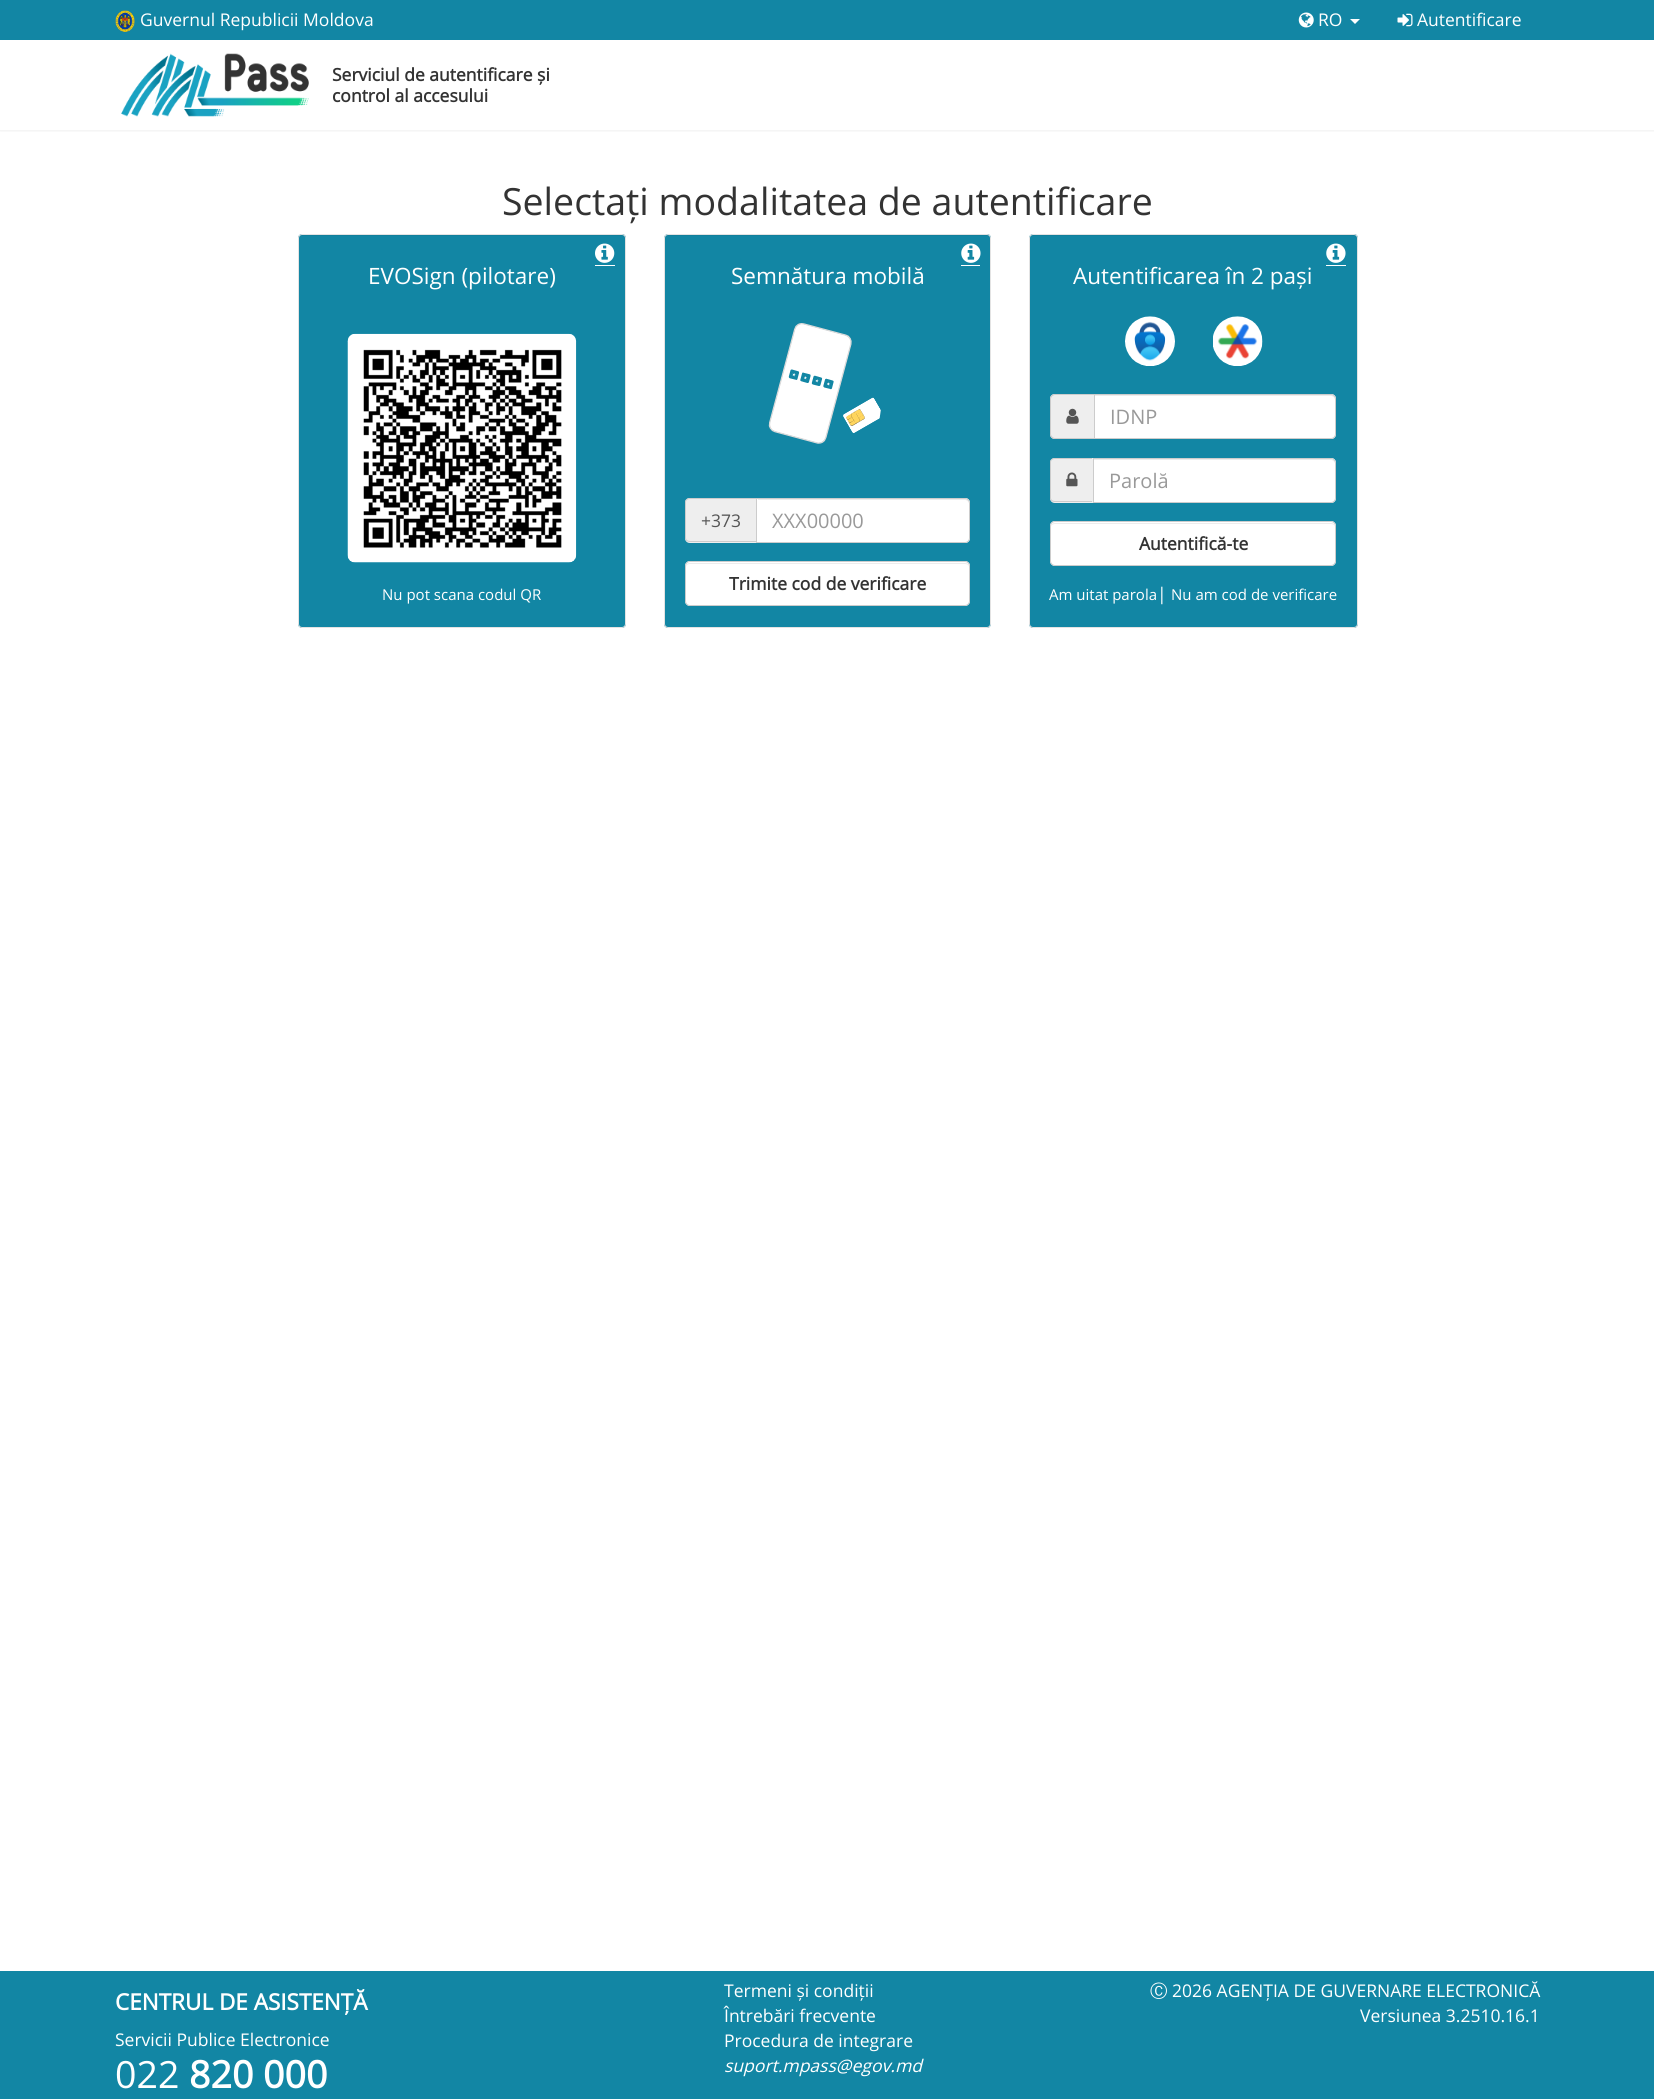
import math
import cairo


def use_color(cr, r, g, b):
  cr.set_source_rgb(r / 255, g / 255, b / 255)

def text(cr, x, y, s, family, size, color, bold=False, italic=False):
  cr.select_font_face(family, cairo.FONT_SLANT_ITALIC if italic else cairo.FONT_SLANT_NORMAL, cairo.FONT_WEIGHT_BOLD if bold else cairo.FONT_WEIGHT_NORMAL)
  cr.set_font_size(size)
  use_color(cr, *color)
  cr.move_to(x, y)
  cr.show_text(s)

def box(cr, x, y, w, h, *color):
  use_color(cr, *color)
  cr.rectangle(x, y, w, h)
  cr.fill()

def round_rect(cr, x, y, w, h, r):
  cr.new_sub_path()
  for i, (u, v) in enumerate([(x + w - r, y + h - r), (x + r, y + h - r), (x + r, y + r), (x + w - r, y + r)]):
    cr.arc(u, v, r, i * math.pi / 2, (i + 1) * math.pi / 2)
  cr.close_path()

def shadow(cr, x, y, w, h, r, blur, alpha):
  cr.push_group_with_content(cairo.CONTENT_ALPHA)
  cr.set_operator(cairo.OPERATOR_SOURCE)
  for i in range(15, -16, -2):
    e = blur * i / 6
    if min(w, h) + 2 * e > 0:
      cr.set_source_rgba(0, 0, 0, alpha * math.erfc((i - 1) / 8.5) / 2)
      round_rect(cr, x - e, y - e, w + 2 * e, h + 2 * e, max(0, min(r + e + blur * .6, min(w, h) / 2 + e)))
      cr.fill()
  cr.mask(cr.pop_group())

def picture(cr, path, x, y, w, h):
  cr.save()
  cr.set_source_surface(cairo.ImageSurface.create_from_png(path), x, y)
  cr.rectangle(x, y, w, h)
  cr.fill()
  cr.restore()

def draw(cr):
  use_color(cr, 255, 255, 255)
  cr.paint()
  cr.save()
  cr.rectangle(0, 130, 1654, 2)
  cr.clip()
  use_color(cr, 0, 0, 0)
  shadow(cr, 0, 1, 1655, 130, 0, 1.5, 0.07)
  cr.restore()
  box(cr, 0, 0, 1654, 40, 18, 134, 164)
  picture(cr, "img_01.png", 115, 10, 20, 23)
  picture(cr, "img_02.png", 1298, 12, 16, 16)
  use_color(cr, 255, 255, 255)
  cr.new_path()
  cr.move_to(1350, 19)
  cr.line_to(1360, 19)
  cr.line_to(1355, 24)
  cr.close_path()
  cr.fill()
  picture(cr, "img_03.png", 1397, 13, 16, 14)
  picture(cr, "img_04.png", 121, 53, 188, 64)
  use_color(cr, 18, 134, 164)
  round_rect(cr, 298, 234, 328, 394, 4)
  cr.fill()
  use_color(cr, 17, 127, 156)
  cr.new_path()
  cr.move_to(301, 236)
  cr.line_to(622, 236)
  cr.curve_to(624, 236, 625, 237, 625, 239)
  cr.curve_to(625, 237, 625, 235, 622, 235)
  cr.line_to(302, 235)
  cr.curve_to(299, 235, 299, 237, 299, 239)
  cr.curve_to(299, 237, 300, 236, 301, 236)
  cr.close_path()
  cr.fill()
  round_rect(cr, 298.5, 234.5, 327, 393, 3.5)
  use_color(cr, 227, 227, 227)
  cr.set_line_width(1)
  cr.stroke()
  box(cr, 595, 265, 20, 1, 255, 255, 255)
  picture(cr, "img_05.png", 595, 243, 20, 20)
  picture(cr, "img_06.png", 347, 333, 230, 230)
  use_color(cr, 18, 134, 164)
  round_rect(cr, 664, 234, 327, 394, 4)
  cr.fill()
  use_color(cr, 17, 127, 156)
  cr.new_path()
  cr.move_to(668, 236)
  cr.line_to(988, 236)
  cr.curve_to(989, 236, 990, 237, 990, 239)
  cr.line_to(990, 238)
  cr.curve_to(990, 236, 989, 235, 988, 235)
  cr.line_to(668, 235)
  cr.curve_to(666, 235, 665, 236, 665, 238)
  cr.line_to(665, 239)
  cr.curve_to(665, 237, 666, 236, 668, 236)
  cr.close_path()
  cr.fill()
  round_rect(cr, 664.5, 234.5, 326, 393, 3.5)
  use_color(cr, 227, 227, 227)
  cr.stroke()
  box(cr, 961, 265, 19, 1, 255, 255, 255)
  picture(cr, "img_07.png", 961, 243, 20, 20)
  picture(cr, "img_08.png", 768, 323, 113, 121)
  use_color(cr, 238, 238, 238)
  cr.new_path()
  cr.move_to(690, 498)
  cr.line_to(756, 498)
  cr.line_to(756, 543)
  cr.line_to(690, 543)
  cr.curve_to(687, 543, 685, 541, 685, 538)
  cr.line_to(685, 503)
  cr.curve_to(685, 500, 687, 498, 690, 498)
  cr.close_path()
  cr.fill()
  use_color(cr, 204, 204, 204)
  cr.set_fill_rule(cairo.FILL_RULE_EVEN_ODD)
  cr.new_path()
  cr.move_to(690, 498)
  cr.line_to(756, 498)
  cr.line_to(756, 542)
  cr.line_to(690, 542)
  cr.curve_to(687, 542, 685, 540, 685, 538)
  cr.line_to(685, 502)
  cr.curve_to(685, 500, 687, 498, 690, 498)
  cr.close_path()
  cr.move_to(690, 499)
  cr.line_to(756, 499)
  cr.line_to(756, 541)
  cr.line_to(690, 541)
  cr.curve_to(688, 541, 686, 540, 686, 538)
  cr.line_to(686, 502)
  cr.curve_to(686, 500, 688, 499, 690, 499)
  cr.close_path()
  cr.fill()
  use_color(cr, 255, 255, 255)
  cr.new_path()
  cr.move_to(756, 498)
  cr.line_to(965, 498)
  cr.curve_to(968, 498, 970, 500, 970, 503)
  cr.line_to(970, 538)
  cr.curve_to(970, 541, 968, 543, 965, 543)
  cr.line_to(756, 543)
  cr.close_path()
  cr.fill()
  use_color(cr, 236, 236, 236)
  cr.set_fill_rule(cairo.FILL_RULE_WINDING)
  cr.new_path()
  cr.move_to(758, 500)
  cr.line_to(965, 500)
  cr.curve_to(967, 500, 969, 502, 969, 504)
  cr.curve_to(969, 502, 969, 500, 967, 499)
  cr.line_to(758, 499)
  cr.close_path()
  cr.fill()
  cr.new_path()
  cr.move_to(756.5, 498.5)
  cr.line_to(965, 498.5)
  cr.curve_to(967.5, 498.5, 969.5, 500.5, 969.5, 503)
  cr.line_to(969.5, 538)
  cr.curve_to(969.5, 540.5, 967.5, 542.5, 965, 542.5)
  cr.line_to(756.5, 542.5)
  cr.close_path()
  use_color(cr, 204, 204, 204)
  cr.stroke()
  use_color(cr, 255, 255, 255)
  round_rect(cr, 685, 561, 285, 45, 5)
  cr.fill()
  use_color(cr, 236, 236, 236)
  cr.new_path()
  cr.move_to(690, 564)
  cr.line_to(965, 564)
  cr.curve_to(967, 564, 969, 565, 969, 568)
  cr.curve_to(969, 565, 968, 563, 965, 563)
  cr.line_to(690, 563)
  cr.curve_to(687, 563, 686, 565, 686, 568)
  cr.curve_to(686, 565, 688, 564, 690, 564)
  cr.close_path()
  cr.fill()
  round_rect(cr, 685.5, 561.5, 284, 44, 4.5)
  use_color(cr, 204, 204, 204)
  cr.stroke()
  use_color(cr, 18, 134, 164)
  round_rect(cr, 1029, 234, 329, 394, 4)
  cr.fill()
  use_color(cr, 17, 127, 156)
  cr.new_path()
  cr.move_to(1032, 236)
  cr.line_to(1354, 236)
  cr.curve_to(1355, 236, 1356, 237, 1356, 239)
  cr.curve_to(1356, 237, 1356, 235, 1354, 235)
  cr.line_to(1032, 235)
  cr.curve_to(1030, 235, 1030, 237, 1030, 239)
  cr.curve_to(1030, 237, 1031, 236, 1032, 236)
  cr.close_path()
  cr.fill()
  round_rect(cr, 1029.5, 234.5, 328, 393, 3.5)
  use_color(cr, 227, 227, 227)
  cr.stroke()
  box(cr, 1326, 265, 20, 1, 255, 255, 255)
  picture(cr, "img_07.png", 1326, 243, 20, 20)
  picture(cr, "img_09.png", 1125, 316, 50, 50)
  picture(cr, "img_10.png", 1213, 316, 50, 50)
  use_color(cr, 238, 238, 238)
  cr.new_path()
  cr.move_to(1055, 394)
  cr.line_to(1094, 394)
  cr.line_to(1094, 439)
  cr.line_to(1055, 439)
  cr.curve_to(1052, 439, 1050, 437, 1050, 434)
  cr.line_to(1050, 399)
  cr.curve_to(1050, 396, 1052, 394, 1055, 394)
  cr.close_path()
  cr.fill()
  use_color(cr, 204, 204, 204)
  cr.set_fill_rule(cairo.FILL_RULE_EVEN_ODD)
  cr.new_path()
  cr.move_to(1055, 394)
  cr.line_to(1094, 394)
  cr.line_to(1094, 439)
  cr.line_to(1055, 439)
  cr.curve_to(1052, 439, 1050, 437, 1050, 434)
  cr.line_to(1050, 399)
  cr.curve_to(1050, 396, 1052, 394, 1055, 394)
  cr.close_path()
  cr.move_to(1055, 395)
  cr.line_to(1094, 395)
  cr.line_to(1094, 438)
  cr.line_to(1055, 438)
  cr.curve_to(1053, 438, 1051, 436, 1051, 434)
  cr.line_to(1051, 399)
  cr.curve_to(1051, 397, 1053, 395, 1055, 395)
  cr.close_path()
  cr.fill()
  picture(cr, "img_11.png", 1066, 408, 13, 16)
  use_color(cr, 255, 255, 255)
  cr.new_path()
  cr.move_to(1094, 394)
  cr.line_to(1331, 394)
  cr.curve_to(1334, 394, 1336, 396, 1336, 399)
  cr.line_to(1336, 434)
  cr.curve_to(1336, 437, 1334, 439, 1331, 439)
  cr.line_to(1094, 439)
  cr.close_path()
  cr.fill()
  use_color(cr, 236, 236, 236)
  cr.set_fill_rule(cairo.FILL_RULE_WINDING)
  cr.new_path()
  cr.move_to(1095, 396)
  cr.line_to(1331, 396)
  cr.curve_to(1333, 396, 1335, 398, 1335, 400)
  cr.curve_to(1335, 398, 1335, 396, 1333, 395)
  cr.line_to(1095, 395)
  cr.close_path()
  cr.fill()
  cr.new_path()
  cr.move_to(1094.5, 394.5)
  cr.line_to(1331, 394.5)
  cr.curve_to(1333.5, 394.5, 1335.5, 396.5, 1335.5, 399)
  cr.line_to(1335.5, 434)
  cr.curve_to(1335.5, 436.5, 1333.5, 438.5, 1331, 438.5)
  cr.line_to(1094.5, 438.5)
  cr.close_path()
  use_color(cr, 204, 204, 204)
  cr.stroke()
  use_color(cr, 238, 238, 238)
  cr.new_path()
  cr.move_to(1055, 458)
  cr.line_to(1093, 458)
  cr.line_to(1093, 503)
  cr.line_to(1055, 503)
  cr.curve_to(1052, 503, 1050, 501, 1050, 498)
  cr.line_to(1050, 463)
  cr.curve_to(1050, 460, 1052, 458, 1055, 458)
  cr.close_path()
  cr.fill()
  use_color(cr, 204, 204, 204)
  cr.set_fill_rule(cairo.FILL_RULE_EVEN_ODD)
  cr.new_path()
  cr.move_to(1055, 458)
  cr.line_to(1092, 458)
  cr.line_to(1092, 502)
  cr.line_to(1055, 502)
  cr.curve_to(1052, 502, 1050, 500, 1050, 498)
  cr.line_to(1050, 462)
  cr.curve_to(1050, 460, 1052, 458, 1055, 458)
  cr.close_path()
  cr.move_to(1055, 459)
  cr.line_to(1092, 459)
  cr.line_to(1092, 501)
  cr.line_to(1055, 501)
  cr.curve_to(1053, 501, 1051, 500, 1051, 498)
  cr.line_to(1051, 462)
  cr.curve_to(1051, 460, 1053, 459, 1055, 459)
  cr.close_path()
  cr.fill()
  picture(cr, "img_12.png", 1066, 472, 12, 15)
  use_color(cr, 255, 255, 255)
  cr.new_path()
  cr.move_to(1093, 458)
  cr.line_to(1331, 458)
  cr.curve_to(1334, 458, 1336, 460, 1336, 463)
  cr.line_to(1336, 498)
  cr.curve_to(1336, 501, 1334, 503, 1331, 503)
  cr.line_to(1093, 503)
  cr.close_path()
  cr.fill()
  use_color(cr, 236, 236, 236)
  cr.set_fill_rule(cairo.FILL_RULE_WINDING)
  cr.new_path()
  cr.move_to(1094, 460)
  cr.line_to(1331, 460)
  cr.curve_to(1333, 460, 1335, 462, 1335, 464)
  cr.curve_to(1335, 461, 1334, 459, 1331, 459)
  cr.line_to(1094, 459)
  cr.close_path()
  cr.fill()
  cr.new_path()
  cr.move_to(1093.5, 458.5)
  cr.line_to(1331, 458.5)
  cr.curve_to(1333.5, 458.5, 1335.5, 460.5, 1335.5, 463)
  cr.line_to(1335.5, 498)
  cr.curve_to(1335.5, 500.5, 1333.5, 502.5, 1331, 502.5)
  cr.line_to(1093.5, 502.5)
  cr.close_path()
  use_color(cr, 204, 204, 204)
  cr.stroke()
  use_color(cr, 255, 255, 255)
  round_rect(cr, 1050, 521, 286, 45, 5)
  cr.fill()
  use_color(cr, 236, 236, 236)
  cr.new_path()
  cr.move_to(1055, 524)
  cr.line_to(1331, 524)
  cr.curve_to(1333, 524, 1335, 525, 1335, 528)
  cr.curve_to(1335, 525, 1334, 523, 1331, 523)
  cr.line_to(1055, 523)
  cr.curve_to(1052, 523, 1051, 525, 1051, 528)
  cr.curve_to(1051, 525, 1053, 524, 1055, 524)
  cr.close_path()
  cr.fill()
  round_rect(cr, 1050.5, 521.5, 285, 44, 4.5)
  use_color(cr, 204, 204, 204)
  cr.stroke()
  box(cr, 0, 1971, 1654, 128, 18, 134, 164)
  text(cr, 140, 26, "Guvernul Republicii Moldova", "Open Sans", 17.5, (255, 255, 255))
  text(cr, 1318, 26, "RO", "Open Sans", 17.5, (255, 255, 255))
  text(cr, 1417, 26, "Autentificare", "Open Sans", 17.5, (255, 255, 255))
  text(cr, 332, 81, "Serviciul de autentificare și", "Open Sans", 17.5, (51, 51, 51), bold=True)
  text(cr, 332, 102, "control al accesului", "Open Sans", 17.5, (51, 51, 51), bold=True)
  text(cr, 502, 215, "Selectați modalitatea de autentificare", "Open Sans", 37.5, (51, 51, 51))
  text(cr, 368, 284, "EVOSign (pilotare)", "Open Sans", 22.5, (255, 255, 255))
  text(cr, 382, 600, "Nu pot scana codul QR", "Open Sans", 15, (255, 255, 255))
  text(cr, 731, 284, "Semnătura mobilă", "Open Sans", 22.5, (255, 255, 255))
  text(cr, 701, 527, "+373", "Open Sans", 17.5, (85, 85, 85))
  text(cr, 772, 528, "XXX00000", "Open Sans", 20, (153, 153, 153))
  text(cr, 729, 590, "Trimite cod de verificare", "Open Sans", 17.5, (51, 51, 51), bold=True)
  text(cr, 1073, 284, "Autentificarea în 2 pași", "Open Sans", 22.5, (255, 255, 255))
  text(cr, 1110, 424, "IDNP", "Open Sans", 20, (153, 153, 153))
  text(cr, 1109, 488, "Parolă", "Open Sans", 20, (153, 153, 153))
  text(cr, 1139, 550, "Autentifică-te", "Open Sans", 17.5, (51, 51, 51), bold=True)
  text(cr, 1049, 600, "Am uitat parola", "Open Sans", 15, (255, 255, 255))
  text(cr, 1157, 600, "|", "Open Sans", 17.5, (255, 255, 255))
  text(cr, 1171, 600, "Nu am cod de verificare", "Open Sans", 15, (255, 255, 255))
  text(cr, 115, 2010, "CENTRUL DE ASISTENȚĂ", "Open Sans", 22.5, (255, 255, 255), bold=True)
  text(cr, 115, 2046, "Servicii Publice Electronice", "Open Sans", 17.5, (255, 255, 255))
  text(cr, 115, 2088, "022", "Open Sans", 37.5, (255, 255, 255))
  text(cr, 189, 2088, "820 000", "Open Sans", 37.5, (255, 255, 255), bold=True)
  text(cr, 724, 1997, "Termeni și condiții", "Open Sans", 17.5, (255, 255, 255))
  text(cr, 724, 2022, "Întrebări frecvente", "Open Sans", 17.5, (255, 255, 255))
  text(cr, 724, 2047, "Procedura de integrare", "Open Sans", 17.5, (255, 255, 255))
  text(cr, 724, 2072, "suport.mpass@egov.md", "Open Sans", 17.5, (255, 255, 255), italic=True)
  text(cr, 1150, 1997, "Ⓒ", "WenQuanYi Zen Hei Medium", 17.5, (255, 255, 255))
  text(cr, 1172, 1997, "2026 AGENȚIA DE GUVERNARE ELECTRONICĂ", "Open Sans", 17.5, (255, 255, 255))
  text(cr, 1360, 2022, "Versiunea 3.2510.16.1", "Open Sans", 17.5, (255, 255, 255))


surface = cairo.ImageSurface(cairo.FORMAT_RGB24, 1654, 2099)
cr = cairo.Context(surface)
options = cairo.FontOptions()
options.set_hint_metrics(cairo.HINT_METRICS_OFF)
options.set_hint_style(cairo.HINT_STYLE_NONE)
cr.set_font_options(options)
cr.set_miter_limit(4)
draw(cr)
surface.write_to_png("out.png")
